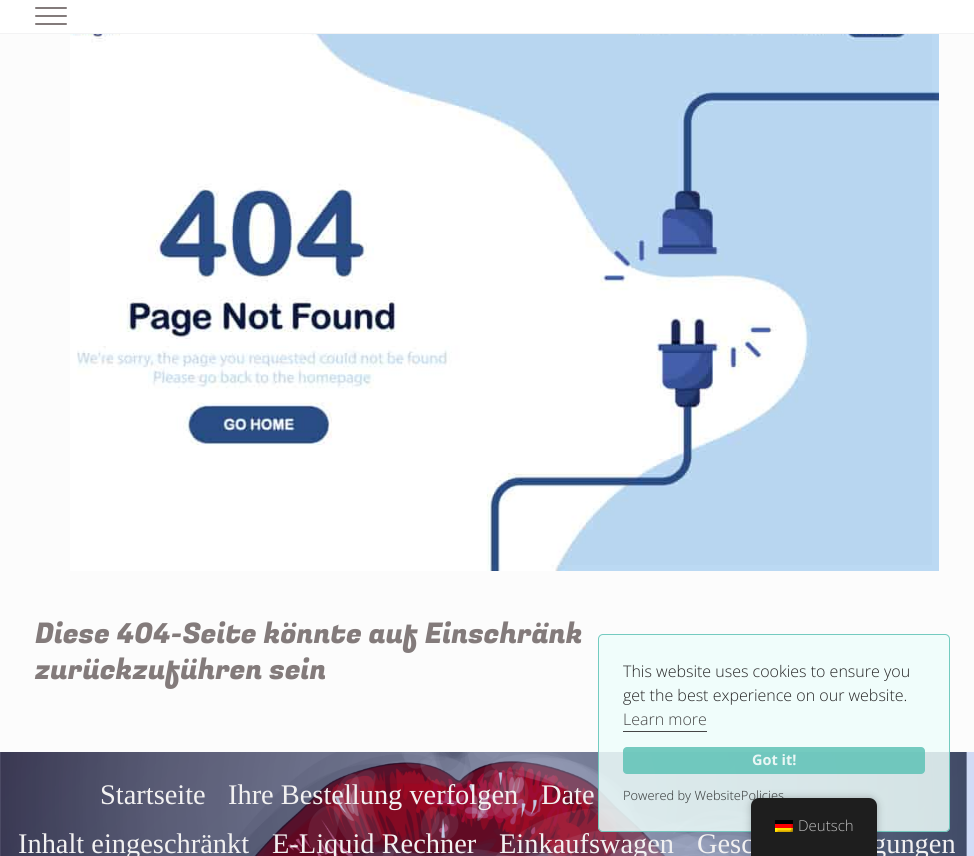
import math
import cairo


def use_color(cr, r, g, b):
  cr.set_source_rgb(r / 255, g / 255, b / 255)

def text(cr, x, y, s, family, size, color, bold=False, italic=False):
  cr.select_font_face(family, cairo.FONT_SLANT_ITALIC if italic else cairo.FONT_SLANT_NORMAL, cairo.FONT_WEIGHT_BOLD if bold else cairo.FONT_WEIGHT_NORMAL)
  cr.set_font_size(size)
  use_color(cr, *color)
  cr.move_to(x, y)
  cr.show_text(s)

def box(cr, x, y, w, h, *color):
  use_color(cr, *color)
  cr.rectangle(x, y, w, h)
  cr.fill()

def round_rect(cr, x, y, w, h, r):
  cr.new_sub_path()
  for i, (u, v) in enumerate([(x + w - r, y + h - r), (x + r, y + h - r), (x + r, y + r), (x + w - r, y + r)]):
    cr.arc(u, v, r, i * math.pi / 2, (i + 1) * math.pi / 2)
  cr.close_path()

def shadow(cr, x, y, w, h, r, blur, alpha):
  cr.push_group_with_content(cairo.CONTENT_ALPHA)
  cr.set_operator(cairo.OPERATOR_SOURCE)
  for i in range(15, -16, -2):
    e = blur * i / 6
    if min(w, h) + 2 * e > 0:
      cr.set_source_rgba(0, 0, 0, alpha * math.erfc((i - 1) / 8.5) / 2)
      round_rect(cr, x - e, y - e, w + 2 * e, h + 2 * e, max(0, min(r + e + blur * .6, min(w, h) / 2 + e)))
      cr.fill()
  cr.mask(cr.pop_group())

def picture(cr, path, x, y, w, h):
  cr.save()
  cr.set_source_surface(cairo.ImageSurface.create_from_png(path), x, y)
  cr.rectangle(x, y, w, h)
  cr.fill()
  cr.restore()

def draw(cr):
  use_color(cr, 252, 252, 252)
  cr.paint()
  box(cr, 0, 0, 974, 33, 255, 255, 255)
  box(cr, 0, 33, 974, 1, 243, 243, 244)
  use_color(cr, 131, 123, 123)
  round_rect(cr, 35, 15, 32, 2, 1)
  cr.fill()
  round_rect(cr, 35, 7, 32, 2, 1)
  cr.fill()
  round_rect(cr, 35, 23, 32, 2, 1)
  cr.fill()
  picture(cr, "img_01.png", 70, 34, 869, 537)
  picture(cr, "img_02.png", 0, 752, 967, 104)
  gradient = cairo.LinearGradient(160, 592, 814, 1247)
  gradient.add_color_stop_rgba(0, 0.008, 0.012, 0.506, 0.2)
  gradient.add_color_stop_rgba(1, 0.157, 0.455, 0.988, 0.2)
  cr.set_source(gradient)
  cr.rectangle(0, 752, 974, 104)
  cr.fill()
  cr.set_source_rgba(0.929, 0.992, 0.98, 0.85)
  round_rect(cr, 598, 634, 352, 198, 5)
  cr.fill()
  round_rect(cr, 598.5, 634.5, 351, 197, 4.5)
  cr.set_source_rgba(0.369, 0.761, 0.714, 0.85)
  cr.set_line_width(1)
  cr.stroke()
  box(cr, 623, 731, 84, 1, 70, 70, 70)
  cr.set_source_rgba(0.369, 0.761, 0.714, 0.85)
  round_rect(cr, 623, 747, 302, 27, 4)
  cr.fill()
  use_color(cr, 0, 0, 0)
  shadow(cr, 751, 798, 126, 58, 8, 4, 0.25)
  text(cr, 35, 643, "Diese 404-Seite könnte auf Einschränk", "Fugaz One", 28.4, (131, 123, 123))
  text(cr, 35, 679, "zurückzuführen sein", "Fugaz One", 28.4, (131, 123, 123))
  text(cr, 100, 804, "Startseite", "Liberation Serif", 28.4, (242, 241, 241))
  text(cr, 228, 804, "Ihre Bestellung verfolgen", "Liberation Serif", 28.4, (242, 241, 241))
  text(cr, 541, 804, "Date", "Liberation Serif", 28.4, (242, 241, 241))
  text(cr, 18, 853, "Inhalt eingeschränkt", "Liberation Serif", 28.4, (242, 241, 241))
  text(cr, 272, 853, "E-Liquid Rechner", "Liberation Serif", 28.4, (242, 241, 241))
  text(cr, 499, 853, "Einkaufswagen", "Liberation Serif", 28.4, (242, 241, 241))
  text(cr, 697, 853, "Gesc", "Liberation Serif", 28.4, (242, 241, 241))
  text(cr, 872, 853, "gungen", "Liberation Serif", 28.4, (242, 241, 241))
  text(cr, 623, 677, "This website uses cookies to ensure you", "Open Sans Light", 16, (38, 38, 38))
  text(cr, 623, 701, "get the best experience on our website.", "Open Sans Light", 16, (38, 38, 38))
  text(cr, 623, 725, "Learn more", "Open Sans Light", 16, (70, 70, 70))
  text(cr, 752, 765, "Got it!", "Open Sans", 14.5, (234, 247, 245), bold=True)
  text(cr, 623, 800, "Powered by WebsitePolicies", "Noto Sans Light", 12.75, (62, 66, 66))
  use_color(cr, 30, 30, 30)
  cr.new_path()
  cr.move_to(759, 798)
  cr.line_to(869, 798)
  cr.curve_to(873.5, 798, 877, 801.5, 877, 806)
  cr.line_to(877, 856)
  cr.line_to(751, 856)
  cr.line_to(751, 806)
  cr.curve_to(751, 801.5, 754.5, 798, 759, 798)
  cr.close_path()
  cr.fill()
  picture(cr, "img_03.png", 775, 820, 18, 12)
  text(cr, 798, 831, "Deutsch", "Open Sans Light", 15, (189, 189, 189))


surface = cairo.ImageSurface(cairo.FORMAT_RGB24, 974, 856)
cr = cairo.Context(surface)
options = cairo.FontOptions()
options.set_hint_metrics(cairo.HINT_METRICS_OFF)
options.set_hint_style(cairo.HINT_STYLE_NONE)
cr.set_font_options(options)
cr.set_miter_limit(4)
draw(cr)
surface.write_to_png("out.png")
